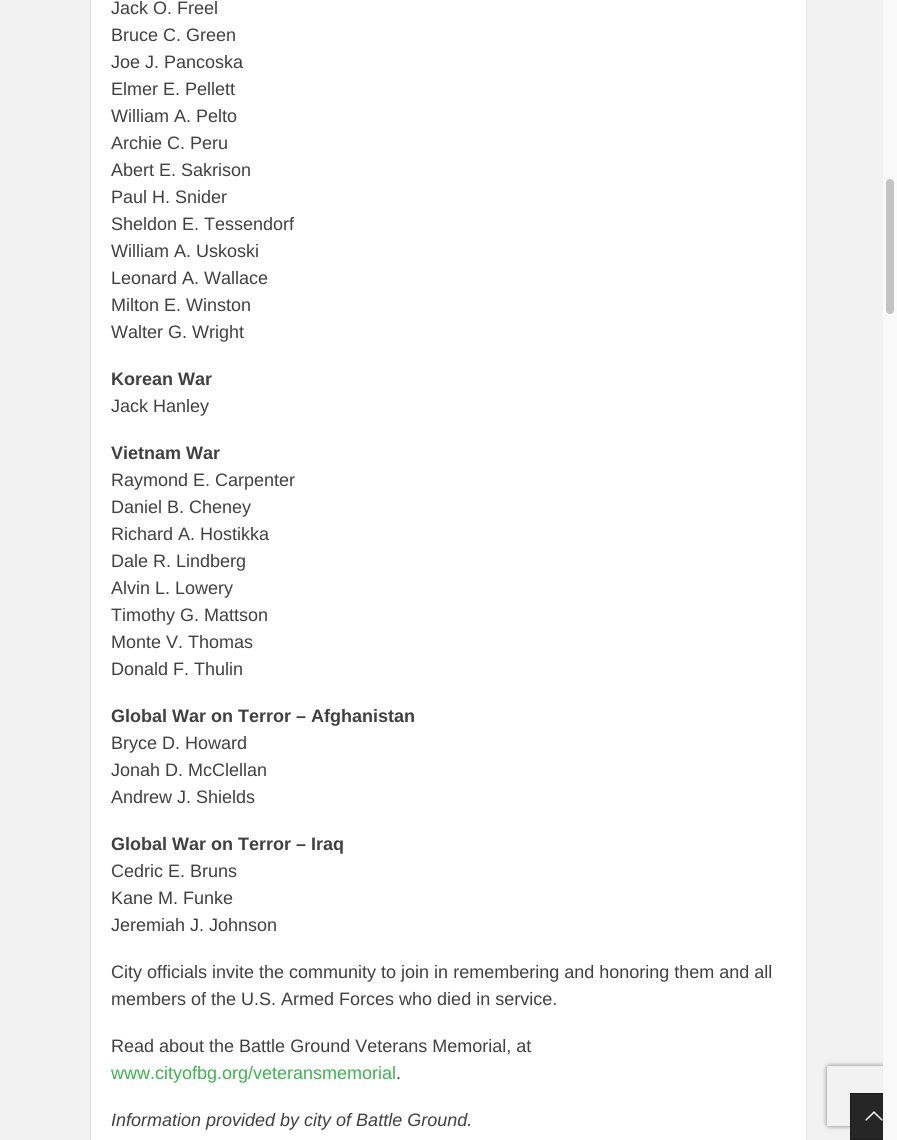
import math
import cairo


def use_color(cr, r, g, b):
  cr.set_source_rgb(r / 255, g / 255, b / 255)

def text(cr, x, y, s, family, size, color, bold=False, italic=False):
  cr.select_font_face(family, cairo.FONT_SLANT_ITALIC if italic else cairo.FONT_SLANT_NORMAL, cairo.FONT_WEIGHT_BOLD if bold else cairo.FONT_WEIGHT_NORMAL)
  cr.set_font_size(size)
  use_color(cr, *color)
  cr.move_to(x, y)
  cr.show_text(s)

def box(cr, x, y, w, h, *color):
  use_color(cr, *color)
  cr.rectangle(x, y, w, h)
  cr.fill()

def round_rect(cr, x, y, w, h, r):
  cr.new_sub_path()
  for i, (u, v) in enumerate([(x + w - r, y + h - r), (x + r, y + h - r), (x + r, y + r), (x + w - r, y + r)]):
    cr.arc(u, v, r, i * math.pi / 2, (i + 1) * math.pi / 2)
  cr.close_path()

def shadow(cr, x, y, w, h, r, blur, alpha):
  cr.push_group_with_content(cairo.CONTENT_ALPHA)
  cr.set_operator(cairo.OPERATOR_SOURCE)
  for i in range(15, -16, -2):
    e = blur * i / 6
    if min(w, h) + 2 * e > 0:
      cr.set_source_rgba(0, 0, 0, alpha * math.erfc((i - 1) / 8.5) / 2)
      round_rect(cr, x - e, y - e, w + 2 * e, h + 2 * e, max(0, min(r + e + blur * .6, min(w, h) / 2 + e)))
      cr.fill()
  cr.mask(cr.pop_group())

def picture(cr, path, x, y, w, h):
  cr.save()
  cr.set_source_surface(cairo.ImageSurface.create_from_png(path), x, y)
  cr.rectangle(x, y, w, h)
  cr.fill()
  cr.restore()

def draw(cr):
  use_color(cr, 242, 242, 242)
  cr.paint()
  use_color(cr, 255, 255, 255)
  cr.rectangle(90.5, -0.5, 716, 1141)
  cr.fill_preserve()
  use_color(cr, 225, 225, 225)
  cr.set_line_width(1)
  cr.stroke()
  cr.save()
  cr.set_fill_rule(cairo.FILL_RULE_EVEN_ODD)
  cr.new_path()
  cr.move_to(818, 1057)
  cr.line_to(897, 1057)
  cr.line_to(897, 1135)
  cr.line_to(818, 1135)
  cr.close_path()
  cr.move_to(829, 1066)
  cr.line_to(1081, 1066)
  cr.curve_to(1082, 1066, 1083, 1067, 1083, 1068)
  cr.line_to(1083, 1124)
  cr.curve_to(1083, 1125, 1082, 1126, 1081, 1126)
  cr.line_to(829, 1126)
  cr.curve_to(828, 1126, 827, 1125, 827, 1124)
  cr.line_to(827, 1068)
  cr.curve_to(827, 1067, 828, 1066, 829, 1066)
  cr.close_path()
  cr.clip()
  use_color(cr, 128, 128, 128)
  shadow(cr, 827, 1066, 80, 60, 2, 2.5, 1)
  cr.restore()
  box(cr, 851, 1094, 32, 45, 38, 38, 38)
  cr.rectangle(850.5, 1093.5, 46, 46)
  use_color(cr, 26, 26, 26)
  cr.stroke()
  picture(cr, "img_01.png", 865, 1111, 18, 10)
  box(cr, 883, 0, 14, 1140, 249, 249, 249)
  use_color(cr, 195, 195, 195)
  round_rect(cr, 886, 179, 8, 135, 4)
  cr.fill()
  text(cr, 111, 14, "Jack O. Freel", "Liberation Sans", 18, (64, 64, 64))
  text(cr, 111, 41, "Bruce C. Green", "Liberation Sans", 18, (64, 64, 64))
  text(cr, 111, 68, "Joe J. Pancoska", "Liberation Sans", 18, (64, 64, 64))
  text(cr, 111, 95, "Elmer E. Pellett", "Liberation Sans", 18, (64, 64, 64))
  text(cr, 111, 122, "William A. Pelto", "Liberation Sans", 18, (64, 64, 64))
  text(cr, 111, 149, "Archie C. Peru", "Liberation Sans", 18, (64, 64, 64))
  text(cr, 111, 176, "Abert E. Sakrison", "Liberation Sans", 18, (64, 64, 64))
  text(cr, 111, 203, "Paul H. Snider", "Liberation Sans", 18, (64, 64, 64))
  text(cr, 111, 230, "Sheldon E. Tessendorf", "Liberation Sans", 18, (64, 64, 64))
  text(cr, 111, 257, "William A. Uskoski", "Liberation Sans", 18, (64, 64, 64))
  text(cr, 111, 284, "Leonard A. Wallace", "Liberation Sans", 18, (64, 64, 64))
  text(cr, 111, 311, "Milton E. Winston", "Liberation Sans", 18, (64, 64, 64))
  text(cr, 111, 338, "Walter G. Wright", "Liberation Sans", 18, (64, 64, 64))
  text(cr, 111, 385, "Korean War", "Liberation Sans", 18, (64, 64, 64), bold=True)
  text(cr, 111, 412, "Jack Hanley", "Liberation Sans", 18, (64, 64, 64))
  text(cr, 111, 459, "Vietnam War", "Liberation Sans", 18, (64, 64, 64), bold=True)
  text(cr, 111, 486, "Raymond E. Carpenter", "Liberation Sans", 18, (64, 64, 64))
  text(cr, 111, 513, "Daniel B. Cheney", "Liberation Sans", 18, (64, 64, 64))
  text(cr, 111, 540, "Richard A. Hostikka", "Liberation Sans", 18, (64, 64, 64))
  text(cr, 111, 567, "Dale R. Lindberg", "Liberation Sans", 18, (64, 64, 64))
  text(cr, 111, 594, "Alvin L. Lowery", "Liberation Sans", 18, (64, 64, 64))
  text(cr, 111, 621, "Timothy G. Mattson", "Liberation Sans", 18, (64, 64, 64))
  text(cr, 111, 648, "Monte V. Thomas", "Liberation Sans", 18, (64, 64, 64))
  text(cr, 111, 675, "Donald F. Thulin", "Liberation Sans", 18, (64, 64, 64))
  text(cr, 111, 722, "Global War on Terror – Afghanistan", "Liberation Sans", 18, (64, 64, 64), bold=True)
  text(cr, 111, 749, "Bryce D. Howard", "Liberation Sans", 18, (64, 64, 64))
  text(cr, 111, 776, "Jonah D. McClellan", "Liberation Sans", 18, (64, 64, 64))
  text(cr, 111, 803, "Andrew J. Shields", "Liberation Sans", 18, (64, 64, 64))
  text(cr, 111, 850, "Global War on Terror – Iraq", "Liberation Sans", 18, (64, 64, 64), bold=True)
  text(cr, 111, 877, "Cedric E. Bruns", "Liberation Sans", 18, (64, 64, 64))
  text(cr, 111, 904, "Kane M. Funke", "Liberation Sans", 18, (64, 64, 64))
  text(cr, 111, 931, "Jeremiah J. Johnson", "Liberation Sans", 18, (64, 64, 64))
  text(cr, 111, 978, "City officials invite the community to join in remembering and honoring them and all", "Liberation Sans", 18, (64, 64, 64))
  text(cr, 111, 1005, "members of the U.S. Armed Forces who died in service.", "Liberation Sans", 18, (64, 64, 64))
  text(cr, 111, 1052, "Read about the Battle Ground Veterans Memorial, at", "Liberation Sans", 18, (64, 64, 64))
  text(cr, 111, 1079, "www.cityofbg.org/veteransmemorial", "Liberation Sans", 18, (57, 181, 74))
  text(cr, 396, 1079, ".", "Liberation Sans", 18, (64, 64, 64))
  text(cr, 111, 1126, "Information provided by city of Battle Ground.", "Liberation Sans", 18, (64, 64, 64), italic=True)


surface = cairo.ImageSurface(cairo.FORMAT_RGB24, 897, 1140)
cr = cairo.Context(surface)
options = cairo.FontOptions()
options.set_hint_metrics(cairo.HINT_METRICS_OFF)
options.set_hint_style(cairo.HINT_STYLE_NONE)
cr.set_font_options(options)
cr.set_miter_limit(4)
draw(cr)
surface.write_to_png("out.png")
